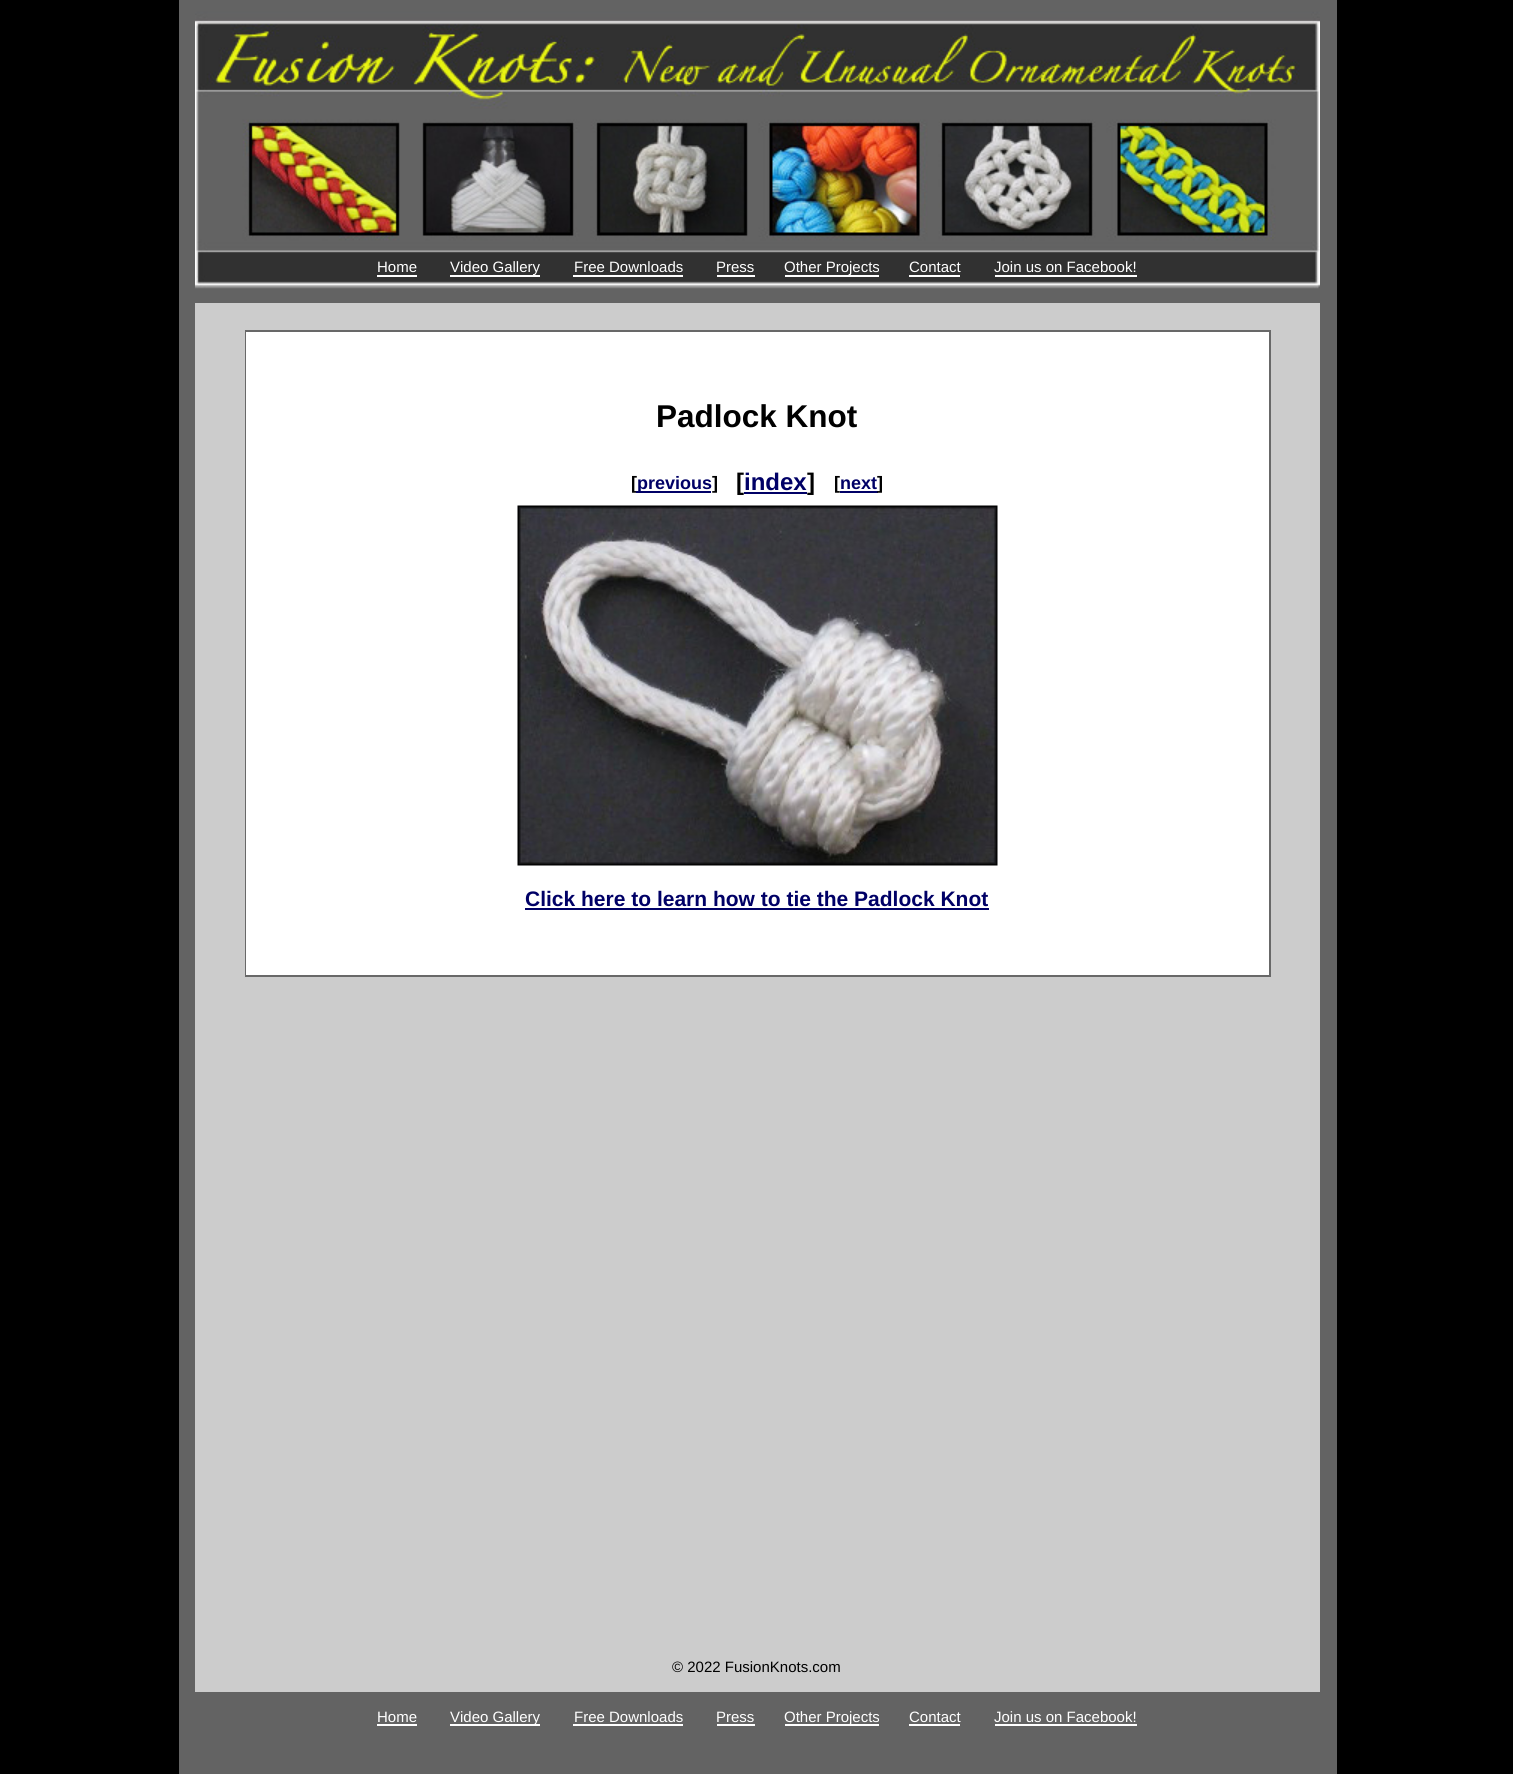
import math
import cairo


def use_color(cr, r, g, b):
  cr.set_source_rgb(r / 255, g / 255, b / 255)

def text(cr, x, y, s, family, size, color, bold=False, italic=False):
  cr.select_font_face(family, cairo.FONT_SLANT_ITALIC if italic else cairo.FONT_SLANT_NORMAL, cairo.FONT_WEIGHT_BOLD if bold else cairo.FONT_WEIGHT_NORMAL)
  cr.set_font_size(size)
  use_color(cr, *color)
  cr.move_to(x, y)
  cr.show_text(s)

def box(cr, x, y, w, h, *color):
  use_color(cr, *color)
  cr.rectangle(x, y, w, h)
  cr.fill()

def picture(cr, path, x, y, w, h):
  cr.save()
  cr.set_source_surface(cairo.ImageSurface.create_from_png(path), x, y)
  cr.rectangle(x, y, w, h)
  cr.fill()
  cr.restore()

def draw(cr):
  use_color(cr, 0, 0, 0)
  cr.paint()
  box(cr, 179, 0, 16, 1774, 99, 99, 99)
  box(cr, 195, 303, 1125, 1389, 204, 204, 204)
  picture(cr, "img_01.png", 195, 0, 1125, 303)
  box(cr, 377, 275, 40, 2, 255, 255, 255)
  box(cr, 450, 275, 90, 2, 255, 255, 255)
  box(cr, 573, 275, 110, 2, 255, 255, 255)
  box(cr, 717, 275, 38, 2, 255, 255, 255)
  box(cr, 785, 275, 94, 2, 255, 255, 255)
  box(cr, 909, 275, 51, 2, 255, 255, 255)
  box(cr, 995, 275, 142, 2, 255, 255, 255)
  box(cr, 245, 330, 1026, 647, 104, 104, 104)
  box(cr, 246, 332, 1023, 643, 255, 255, 255)
  box(cr, 840, 491, 38, 2, 0, 0, 102)
  picture(cr, "img_02.png", 517, 505, 481, 361)
  box(cr, 525, 908, 464, 2, 0, 0, 102)
  box(cr, 1320, 0, 17, 1692, 99, 99, 99)
  box(cr, 195, 1692, 1142, 82, 99, 99, 99)
  box(cr, 377, 1724, 40, 2, 255, 255, 255)
  box(cr, 450, 1724, 90, 2, 255, 255, 255)
  box(cr, 573, 1724, 110, 2, 255, 255, 255)
  box(cr, 717, 1724, 38, 2, 255, 255, 255)
  box(cr, 785, 1724, 94, 2, 255, 255, 255)
  box(cr, 909, 1724, 51, 2, 255, 255, 255)
  box(cr, 995, 1724, 142, 2, 255, 255, 255)
  text(cr, 377, 272, "Home", "Liberation Sans", 15, (255, 255, 255))
  text(cr, 450, 272, "Video Gallery", "Liberation Sans", 15, (255, 255, 255))
  text(cr, 574, 272, "Free Downloads", "Liberation Sans", 15, (255, 255, 255))
  text(cr, 716, 272, "Press", "Liberation Sans", 15, (255, 255, 255))
  text(cr, 784, 272, "Other Projects", "Liberation Sans", 15, (255, 255, 255))
  text(cr, 909, 272, "Contact", "Liberation Sans", 15, (255, 255, 255))
  text(cr, 994, 272, "Join us on Facebook!", "Liberation Sans", 15, (255, 255, 255))
  text(cr, 656, 427, "Padlock Knot", "Liberation Sans", 31.5, (0, 0, 0), bold=True)
  text(cr, 631, 489, "[", "Liberation Sans", 18, (0, 0, 0), bold=True)
  box(cr, 636, 491, 75, 2, 0, 0, 102)
  text(cr, 637, 489, "previous", "Liberation Sans", 18, (0, 0, 102), bold=True)
  text(cr, 712, 489, "]", "Liberation Sans", 18, (0, 0, 0), bold=True)
  text(cr, 736, 490, "[", "Liberation Sans", 24, (0, 0, 0), bold=True)
  box(cr, 744, 492, 63, 2, 0, 0, 102)
  text(cr, 744, 490, "index", "Liberation Sans", 24, (0, 0, 102), bold=True)
  text(cr, 807, 490, "]", "Liberation Sans", 24, (0, 0, 0), bold=True)
  text(cr, 834, 489, "[", "Liberation Sans", 18, (0, 0, 0), bold=True)
  text(cr, 840, 489, "next", "Liberation Sans", 18, (0, 0, 102), bold=True)
  text(cr, 877, 489, "]", "Liberation Sans", 18, (0, 0, 0), bold=True)
  text(cr, 525, 906, "Click here to learn how to tie the Padlock Knot", "Liberation Sans", 21, (0, 0, 102), bold=True)
  text(cr, 672, 1672, "© 2022 FusionKnots.com", "Liberation Sans", 15, (0, 0, 0))
  text(cr, 377, 1722, "Home", "Liberation Sans", 15, (255, 255, 255))
  text(cr, 450, 1722, "Video Gallery", "Liberation Sans", 15, (255, 255, 255))
  text(cr, 574, 1722, "Free Downloads", "Liberation Sans", 15, (255, 255, 255))
  text(cr, 716, 1722, "Press", "Liberation Sans", 15, (255, 255, 255))
  text(cr, 784, 1722, "Other Projects", "Liberation Sans", 15, (255, 255, 255))
  text(cr, 909, 1722, "Contact", "Liberation Sans", 15, (255, 255, 255))
  text(cr, 994, 1722, "Join us on Facebook!", "Liberation Sans", 15, (255, 255, 255))


surface = cairo.ImageSurface(cairo.FORMAT_RGB24, 1513, 1774)
cr = cairo.Context(surface)
options = cairo.FontOptions()
options.set_hint_metrics(cairo.HINT_METRICS_OFF)
options.set_hint_style(cairo.HINT_STYLE_NONE)
cr.set_font_options(options)
cr.set_miter_limit(4)
draw(cr)
surface.write_to_png("out.png")
